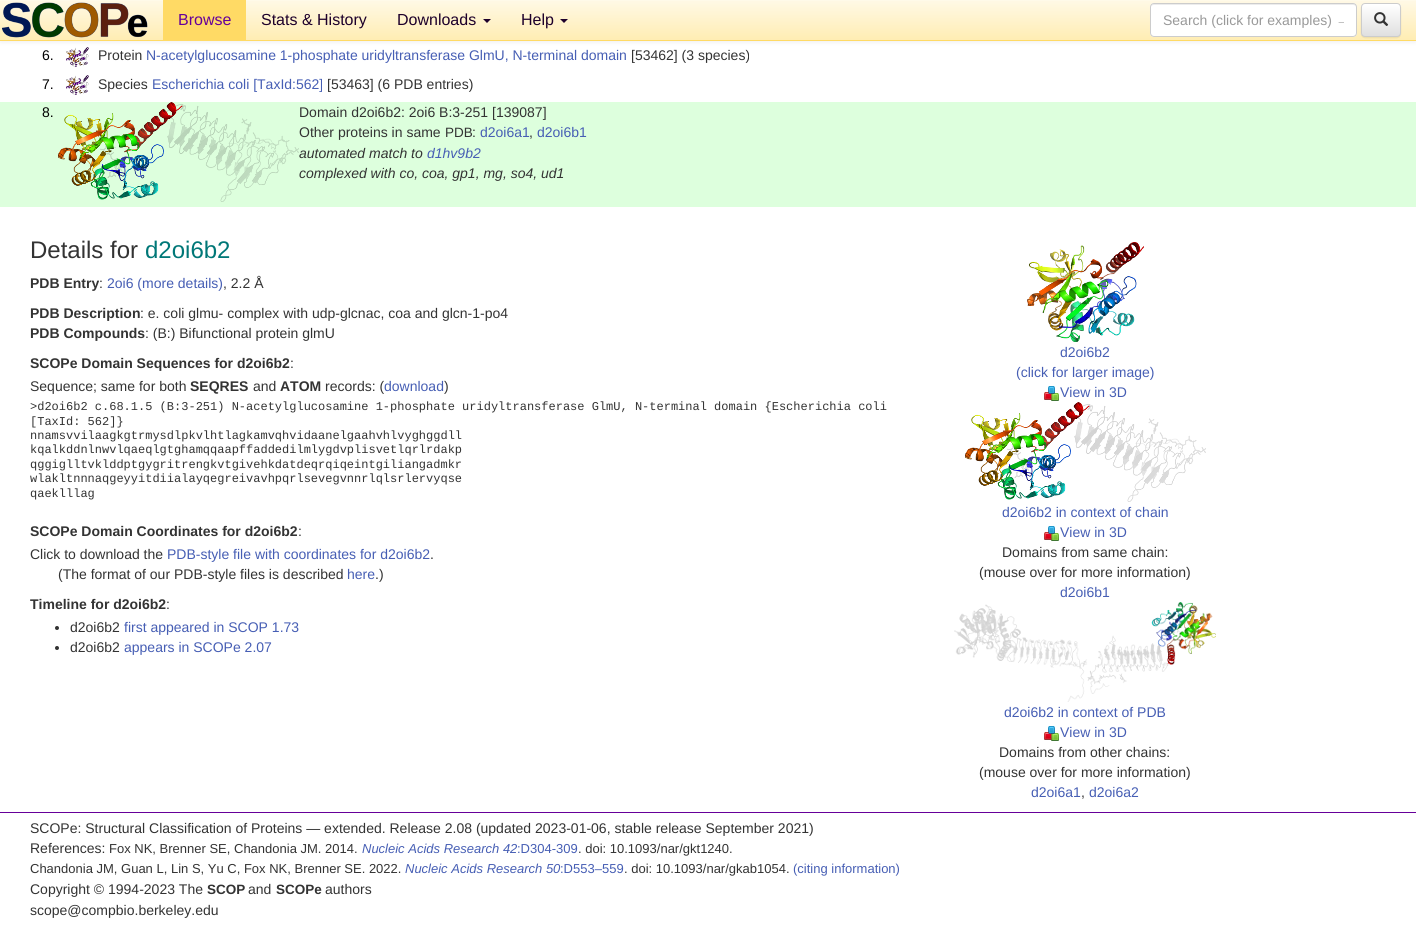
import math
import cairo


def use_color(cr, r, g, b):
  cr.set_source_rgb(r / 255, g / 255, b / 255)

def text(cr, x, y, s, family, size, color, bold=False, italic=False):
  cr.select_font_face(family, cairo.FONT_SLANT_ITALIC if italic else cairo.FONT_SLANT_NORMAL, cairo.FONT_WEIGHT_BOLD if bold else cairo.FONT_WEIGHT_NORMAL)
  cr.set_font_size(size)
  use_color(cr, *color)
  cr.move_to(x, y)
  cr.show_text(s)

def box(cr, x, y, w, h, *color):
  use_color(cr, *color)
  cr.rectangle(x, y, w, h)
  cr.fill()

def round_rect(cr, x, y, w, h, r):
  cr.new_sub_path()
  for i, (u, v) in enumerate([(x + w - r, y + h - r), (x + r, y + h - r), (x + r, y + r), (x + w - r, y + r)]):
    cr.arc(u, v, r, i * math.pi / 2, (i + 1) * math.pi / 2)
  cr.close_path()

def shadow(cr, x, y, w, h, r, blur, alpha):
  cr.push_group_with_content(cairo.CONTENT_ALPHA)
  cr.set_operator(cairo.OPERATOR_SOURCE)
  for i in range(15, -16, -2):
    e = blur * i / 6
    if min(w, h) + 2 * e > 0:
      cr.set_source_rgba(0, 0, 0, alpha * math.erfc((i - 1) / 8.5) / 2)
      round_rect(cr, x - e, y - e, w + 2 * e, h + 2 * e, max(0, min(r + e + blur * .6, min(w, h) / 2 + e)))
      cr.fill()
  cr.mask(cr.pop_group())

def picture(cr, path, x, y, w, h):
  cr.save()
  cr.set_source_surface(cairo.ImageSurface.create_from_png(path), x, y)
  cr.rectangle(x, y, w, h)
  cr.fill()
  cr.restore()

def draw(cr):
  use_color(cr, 255, 255, 255)
  cr.paint()
  picture(cr, "img_03.png", 66, 47, 23, 20)
  use_color(cr, 0, 0, 0)
  shadow(cr, 0, 1, 1416, 41, 0, 2.5, 0.07)
  gradient = cairo.LinearGradient(708, 0, 708, 40)
  gradient.add_color_stop_rgba(0, 1, 0.976, 0.902, 1)
  gradient.add_color_stop_rgba(1, 1, 0.929, 0.702, 1)
  cr.set_source(gradient)
  cr.rectangle(0, 1, 1416, 39)
  cr.fill()
  box(cr, 0, 0, 1416, 1, 255, 250, 233)
  box(cr, 0, 40, 1416, 1, 255, 218, 101)
  picture(cr, "img_01.png", 2, 2, 146, 36)
  box(cr, 163, 0, 83, 40, 255, 218, 101)
  use_color(cr, 29, 0, 43)
  cr.new_path()
  cr.move_to(483, 19)
  cr.line_to(491, 19)
  cr.line_to(487, 23)
  cr.close_path()
  cr.fill()
  cr.new_path()
  cr.move_to(560, 19)
  cr.line_to(568, 19)
  cr.line_to(564, 23)
  cr.close_path()
  cr.fill()
  use_color(cr, 255, 255, 255)
  round_rect(cr, 1150, 3, 207, 34, 4)
  cr.fill()
  use_color(cr, 236, 236, 236)
  cr.new_path()
  cr.move_to(1154, 5)
  cr.line_to(1353, 5)
  cr.curve_to(1355, 5, 1356, 6, 1356, 8)
  cr.curve_to(1356, 6, 1355, 4, 1353, 4)
  cr.line_to(1154, 4)
  cr.curve_to(1152, 4, 1151, 6, 1151, 8)
  cr.curve_to(1151, 6, 1152, 5, 1154, 5)
  cr.close_path()
  cr.fill()
  round_rect(cr, 1150.5, 3.5, 206, 33, 3.5)
  use_color(cr, 204, 204, 204)
  cr.set_line_width(1)
  cr.stroke()
  use_color(cr, 0, 0, 0)
  shadow(cr, 1361, 4, 40, 34, 4, 0.5, 0.07)
  cr.save()
  round_rect(cr, 1361, 3, 40, 34, 4)
  cr.clip()
  gradient = cairo.LinearGradient(1381, 4, 1381, 36)
  gradient.add_color_stop_rgba(0, 1, 1, 1, 1)
  gradient.add_color_stop_rgba(1, 0.878, 0.878, 0.878, 1)
  cr.set_source(gradient)
  cr.rectangle(1361, 4, 40, 32)
  cr.fill()
  cr.restore()
  round_rect(cr, 1361.5, 3.5, 39, 33, 3.5)
  use_color(cr, 204, 204, 204)
  cr.stroke()
  picture(cr, "img_02.png", 1374, 12, 15, 14)
  picture(cr, "img_03.png", 66, 75, 23, 20)
  box(cr, 0, 102, 1416, 105, 221, 255, 221)
  picture(cr, "img_04.png", 58, 102, 241, 100)
  use_color(cr, 51, 51, 51)
  cr.arc(57, 628, 2, 0, 2 * math.pi)
  cr.fill()
  cr.arc(57, 648, 2, 0, 2 * math.pi)
  cr.fill()
  picture(cr, "img_05.png", 1027, 242, 117, 100)
  picture(cr, "img_06.png", 1044, 386, 15, 15)
  picture(cr, "img_07.png", 965, 402, 241, 100)
  picture(cr, "img_06.png", 1044, 526, 15, 15)
  picture(cr, "img_08.png", 954, 602, 262, 100)
  picture(cr, "img_06.png", 1044, 726, 15, 15)
  box(cr, 0, 812, 1416, 1, 102, 0, 153)
  text(cr, 178, 25, "Browse", "Liberation Sans", 16, (102, 0, 153))
  text(cr, 261, 25, "Stats & History", "Liberation Sans", 16, (29, 0, 43))
  text(cr, 397, 25, "Downloads", "Liberation Sans", 16, (29, 0, 43))
  text(cr, 521, 25, "Help", "Liberation Sans", 16, (29, 0, 43))
  cr.save()
  cr.rectangle(1163, 12, 181, 16)
  cr.clip()
  text(cr, 1163, 25, "Search (click for examples) →", "Liberation Sans", 14, (153, 153, 153))
  cr.restore()
  text(cr, 42, 60, "6.", "Liberation Sans", 14, (0, 0, 0))
  text(cr, 98, 60, "Protein", "Liberation Sans", 14, (51, 51, 51))
  text(cr, 146, 60, "N-acetylglucosamine 1-phosphate uridyltransferase GlmU, N-terminal domain", "Liberation Sans", 14, (70, 94, 180))
  text(cr, 631, 60, "[53462] (3 species)", "Liberation Sans", 14, (51, 51, 51))
  text(cr, 42, 89, "7.", "Liberation Sans", 14, (0, 0, 0))
  text(cr, 98, 89, "Species", "Liberation Sans", 14, (51, 51, 51))
  text(cr, 152, 89, "Escherichia coli [TaxId:562]", "Liberation Sans", 14, (70, 94, 180))
  text(cr, 327, 89, "[53463] (6 PDB entries)", "Liberation Sans", 14, (51, 51, 51))
  text(cr, 42, 117, "8.", "Liberation Sans", 14, (0, 0, 0))
  text(cr, 299, 117, "Domain d2oi6b2: 2oi6 B:3-251 [139087]", "Liberation Sans", 14, (51, 51, 51))
  text(cr, 299, 137, "Other proteins in same", "Liberation Sans", 14, (51, 51, 51))
  text(cr, 445, 137, "PDB", "Liberation Sans", 13.5, (51, 51, 51))
  text(cr, 472, 137, ":", "Liberation Sans", 14, (51, 51, 51))
  text(cr, 480, 137, "d2oi6a1", "Liberation Sans", 14, (70, 94, 180))
  text(cr, 529, 137, ",", "Liberation Sans", 14, (51, 51, 51))
  text(cr, 537, 137, "d2oi6b1", "Liberation Sans", 14, (70, 94, 180))
  text(cr, 299, 158, "automated match to", "Liberation Sans", 14, (51, 51, 51), italic=True)
  text(cr, 427, 158, "d1hv9b2", "Liberation Sans", 14, (70, 94, 180), italic=True)
  text(cr, 299, 178, "complexed with co, coa, gp1, mg, so4, ud1", "Liberation Sans", 14, (51, 51, 51), italic=True)
  text(cr, 30, 258, "Details for", "Liberation Sans", 24, (51, 51, 51))
  text(cr, 145, 258, "d2oi6b2", "Liberation Sans", 24, (0, 119, 119))
  text(cr, 30, 288, "PDB Entry", "Liberation Sans", 14, (51, 51, 51), bold=True)
  text(cr, 99, 288, ":", "Liberation Sans", 14, (51, 51, 51))
  text(cr, 107, 288, "2oi6 (more details)", "Liberation Sans", 14, (70, 94, 180))
  text(cr, 223, 288, ", 2.2 Å", "Liberation Sans", 14, (51, 51, 51))
  text(cr, 30, 318, "PDB Description", "Liberation Sans", 14, (51, 51, 51), bold=True)
  text(cr, 140, 318, ": e. coli glmu- complex with udp-glcnac, coa and glcn-1-po4", "Liberation Sans", 14, (51, 51, 51))
  text(cr, 30, 338, "PDB Compounds", "Liberation Sans", 14, (51, 51, 51), bold=True)
  text(cr, 145, 338, ": (B:) Bifunctional protein glmU", "Liberation Sans", 14, (51, 51, 51))
  text(cr, 30, 368, "SCOPe Domain Sequences for d2oi6b2", "Liberation Sans", 14, (51, 51, 51), bold=True)
  text(cr, 290, 368, ":", "Liberation Sans", 14, (51, 51, 51))
  text(cr, 30, 391, "Sequence; same for both", "Liberation Sans", 14, (51, 51, 51))
  text(cr, 190, 391, "SEQRES", "Liberation Sans", 14, (51, 51, 51), bold=True)
  text(cr, 253, 391, "and", "Liberation Sans", 14, (51, 51, 51))
  text(cr, 280, 391, "ATOM", "Liberation Sans", 14, (51, 51, 51), bold=True)
  text(cr, 325, 391, "records: (", "Liberation Sans", 14, (51, 51, 51))
  text(cr, 384, 391, "download", "Liberation Sans", 14, (70, 94, 180))
  text(cr, 444, 391, ")", "Liberation Sans", 14, (51, 51, 51))
  text(cr, 30, 410, ">d2oi6b2 c.68.1.5 (B:3-251) N-acetylglucosamine 1-phosphate uridyltransferase GlmU, N-terminal domain {Escherichia coli", "Liberation Mono", 12, (51, 51, 51))
  text(cr, 30, 425, "[TaxId: 562]}", "Liberation Mono", 12, (51, 51, 51))
  text(cr, 30, 439, "nnamsvvilaagkgtrmysdlpkvlhtlagkamvqhvidaanelgaahvhlvyghggdll", "Liberation Mono", 12, (51, 51, 51))
  text(cr, 30, 453, "kqalkddnlnwvlqaeqlgtghamqqaapffaddedilmlygdvplisvetlqrlrdakp", "Liberation Mono", 12, (51, 51, 51))
  text(cr, 30, 468, "qggiglltvklddptgygritrengkvtgivehkdatdeqrqiqeintgiliangadmkr", "Liberation Mono", 12, (51, 51, 51))
  text(cr, 30, 482, "wlakltnnnaqgeyyitdiialayqegreivavhpqrlsevegvnnrlqlsrlervyqse", "Liberation Mono", 12, (51, 51, 51))
  text(cr, 30, 497, "qaeklllag", "Liberation Mono", 12, (51, 51, 51))
  text(cr, 30, 536, "SCOPe Domain Coordinates for d2oi6b2", "Liberation Sans", 14, (51, 51, 51), bold=True)
  text(cr, 298, 536, ":", "Liberation Sans", 14, (51, 51, 51))
  text(cr, 30, 559, "Click to download the", "Liberation Sans", 14, (51, 51, 51))
  text(cr, 167, 559, "PDB-style file with coordinates for d2oi6b2", "Liberation Sans", 14, (70, 94, 180))
  text(cr, 430, 559, ".", "Liberation Sans", 14, (51, 51, 51))
  text(cr, 58, 579, "(The format of our PDB-style files is described", "Liberation Sans", 14, (51, 51, 51))
  text(cr, 347, 579, "here", "Liberation Sans", 14, (70, 94, 180))
  text(cr, 375, 579, ".)", "Liberation Sans", 14, (51, 51, 51))
  text(cr, 30, 609, "Timeline for d2oi6b2", "Liberation Sans", 14, (51, 51, 51), bold=True)
  text(cr, 166, 609, ":", "Liberation Sans", 14, (51, 51, 51))
  text(cr, 70, 632, "d2oi6b2", "Liberation Sans", 14, (51, 51, 51))
  text(cr, 124, 632, "first appeared in SCOP 1.73", "Liberation Sans", 14, (70, 94, 180))
  text(cr, 70, 652, "d2oi6b2", "Liberation Sans", 14, (51, 51, 51))
  text(cr, 124, 652, "appears in SCOPe 2.07", "Liberation Sans", 14, (70, 94, 180))
  text(cr, 1060, 357, "d2oi6b2", "Liberation Sans", 14, (70, 94, 180))
  text(cr, 1016, 377, "(click for larger image)", "Liberation Sans", 14, (70, 94, 180))
  text(cr, 1060, 397, "View in 3D", "Liberation Sans", 14, (70, 94, 180))
  text(cr, 1002, 517, "d2oi6b2 in context of chain", "Liberation Sans", 14, (70, 94, 180))
  text(cr, 1060, 537, "View in 3D", "Liberation Sans", 14, (70, 94, 180))
  text(cr, 1002, 557, "Domains from same chain:", "Liberation Sans", 14, (51, 51, 51))
  text(cr, 979, 577, "(mouse over for more information)", "Liberation Sans", 14, (51, 51, 51))
  text(cr, 1060, 597, "d2oi6b1", "Liberation Sans", 14, (70, 94, 180))
  text(cr, 1004, 717, "d2oi6b2 in context of PDB", "Liberation Sans", 14, (70, 94, 180))
  text(cr, 1060, 737, "View in 3D", "Liberation Sans", 14, (70, 94, 180))
  text(cr, 999, 757, "Domains from other chains:", "Liberation Sans", 14, (51, 51, 51))
  text(cr, 979, 777, "(mouse over for more information)", "Liberation Sans", 14, (51, 51, 51))
  text(cr, 1031, 797, "d2oi6a1", "Liberation Sans", 14, (70, 94, 180))
  text(cr, 1081, 797, ",", "Liberation Sans", 14, (51, 51, 51))
  text(cr, 1089, 797, "d2oi6a2", "Liberation Sans", 14, (70, 94, 180))
  text(cr, 30, 833, "SCOPe: Structural Classification of Proteins — extended. Release 2.08 (updated 2023-01-06, stable release September 2021)", "Liberation Sans", 14, (51, 51, 51))
  text(cr, 30, 853, "References:", "Liberation Sans", 14, (51, 51, 51))
  text(cr, 109, 853, "Fox NK, Brenner SE, Chandonia JM. 2014.", "Liberation Sans", 13, (51, 51, 51))
  text(cr, 362, 853, "Nucleic Acids Research 42", "Liberation Sans", 13, (70, 94, 180), italic=True)
  text(cr, 517, 853, ":D304-309", "Liberation Sans", 13, (70, 94, 180))
  text(cr, 578, 853, ". doi: 10.1093/nar/gkt1240.", "Liberation Sans", 13, (51, 51, 51))
  text(cr, 30, 873, "Chandonia JM, Guan L, Lin S, Yu C, Fox NK, Brenner SE. 2022.", "Liberation Sans", 13, (51, 51, 51))
  text(cr, 405, 873, "Nucleic Acids Research 50", "Liberation Sans", 13, (70, 94, 180), italic=True)
  text(cr, 560, 873, ":D553–559", "Liberation Sans", 13, (70, 94, 180))
  text(cr, 624, 873, ". doi: 10.1093/nar/gkab1054.", "Liberation Sans", 13, (51, 51, 51))
  text(cr, 793, 873, "(citing information)", "Liberation Sans", 13, (70, 94, 180))
  text(cr, 30, 894, "Copyright © 1994-2023 The", "Liberation Sans", 14, (51, 51, 51))
  text(cr, 207, 894, "SCOP", "Liberation Sans", 13.5, (51, 51, 51), bold=True)
  text(cr, 248, 894, "and", "Liberation Sans", 14, (51, 51, 51))
  text(cr, 276, 894, "SCOPe", "Liberation Sans", 13.5, (51, 51, 51), bold=True)
  text(cr, 325, 894, "authors", "Liberation Sans", 14, (51, 51, 51))
  text(cr, 30, 915, "scope@compbio.berkeley.edu", "Liberation Sans", 14, (51, 51, 51))


surface = cairo.ImageSurface(cairo.FORMAT_RGB24, 1416, 937)
cr = cairo.Context(surface)
options = cairo.FontOptions()
options.set_hint_metrics(cairo.HINT_METRICS_OFF)
options.set_hint_style(cairo.HINT_STYLE_NONE)
cr.set_font_options(options)
cr.set_miter_limit(4)
draw(cr)
surface.write_to_png("out.png")
